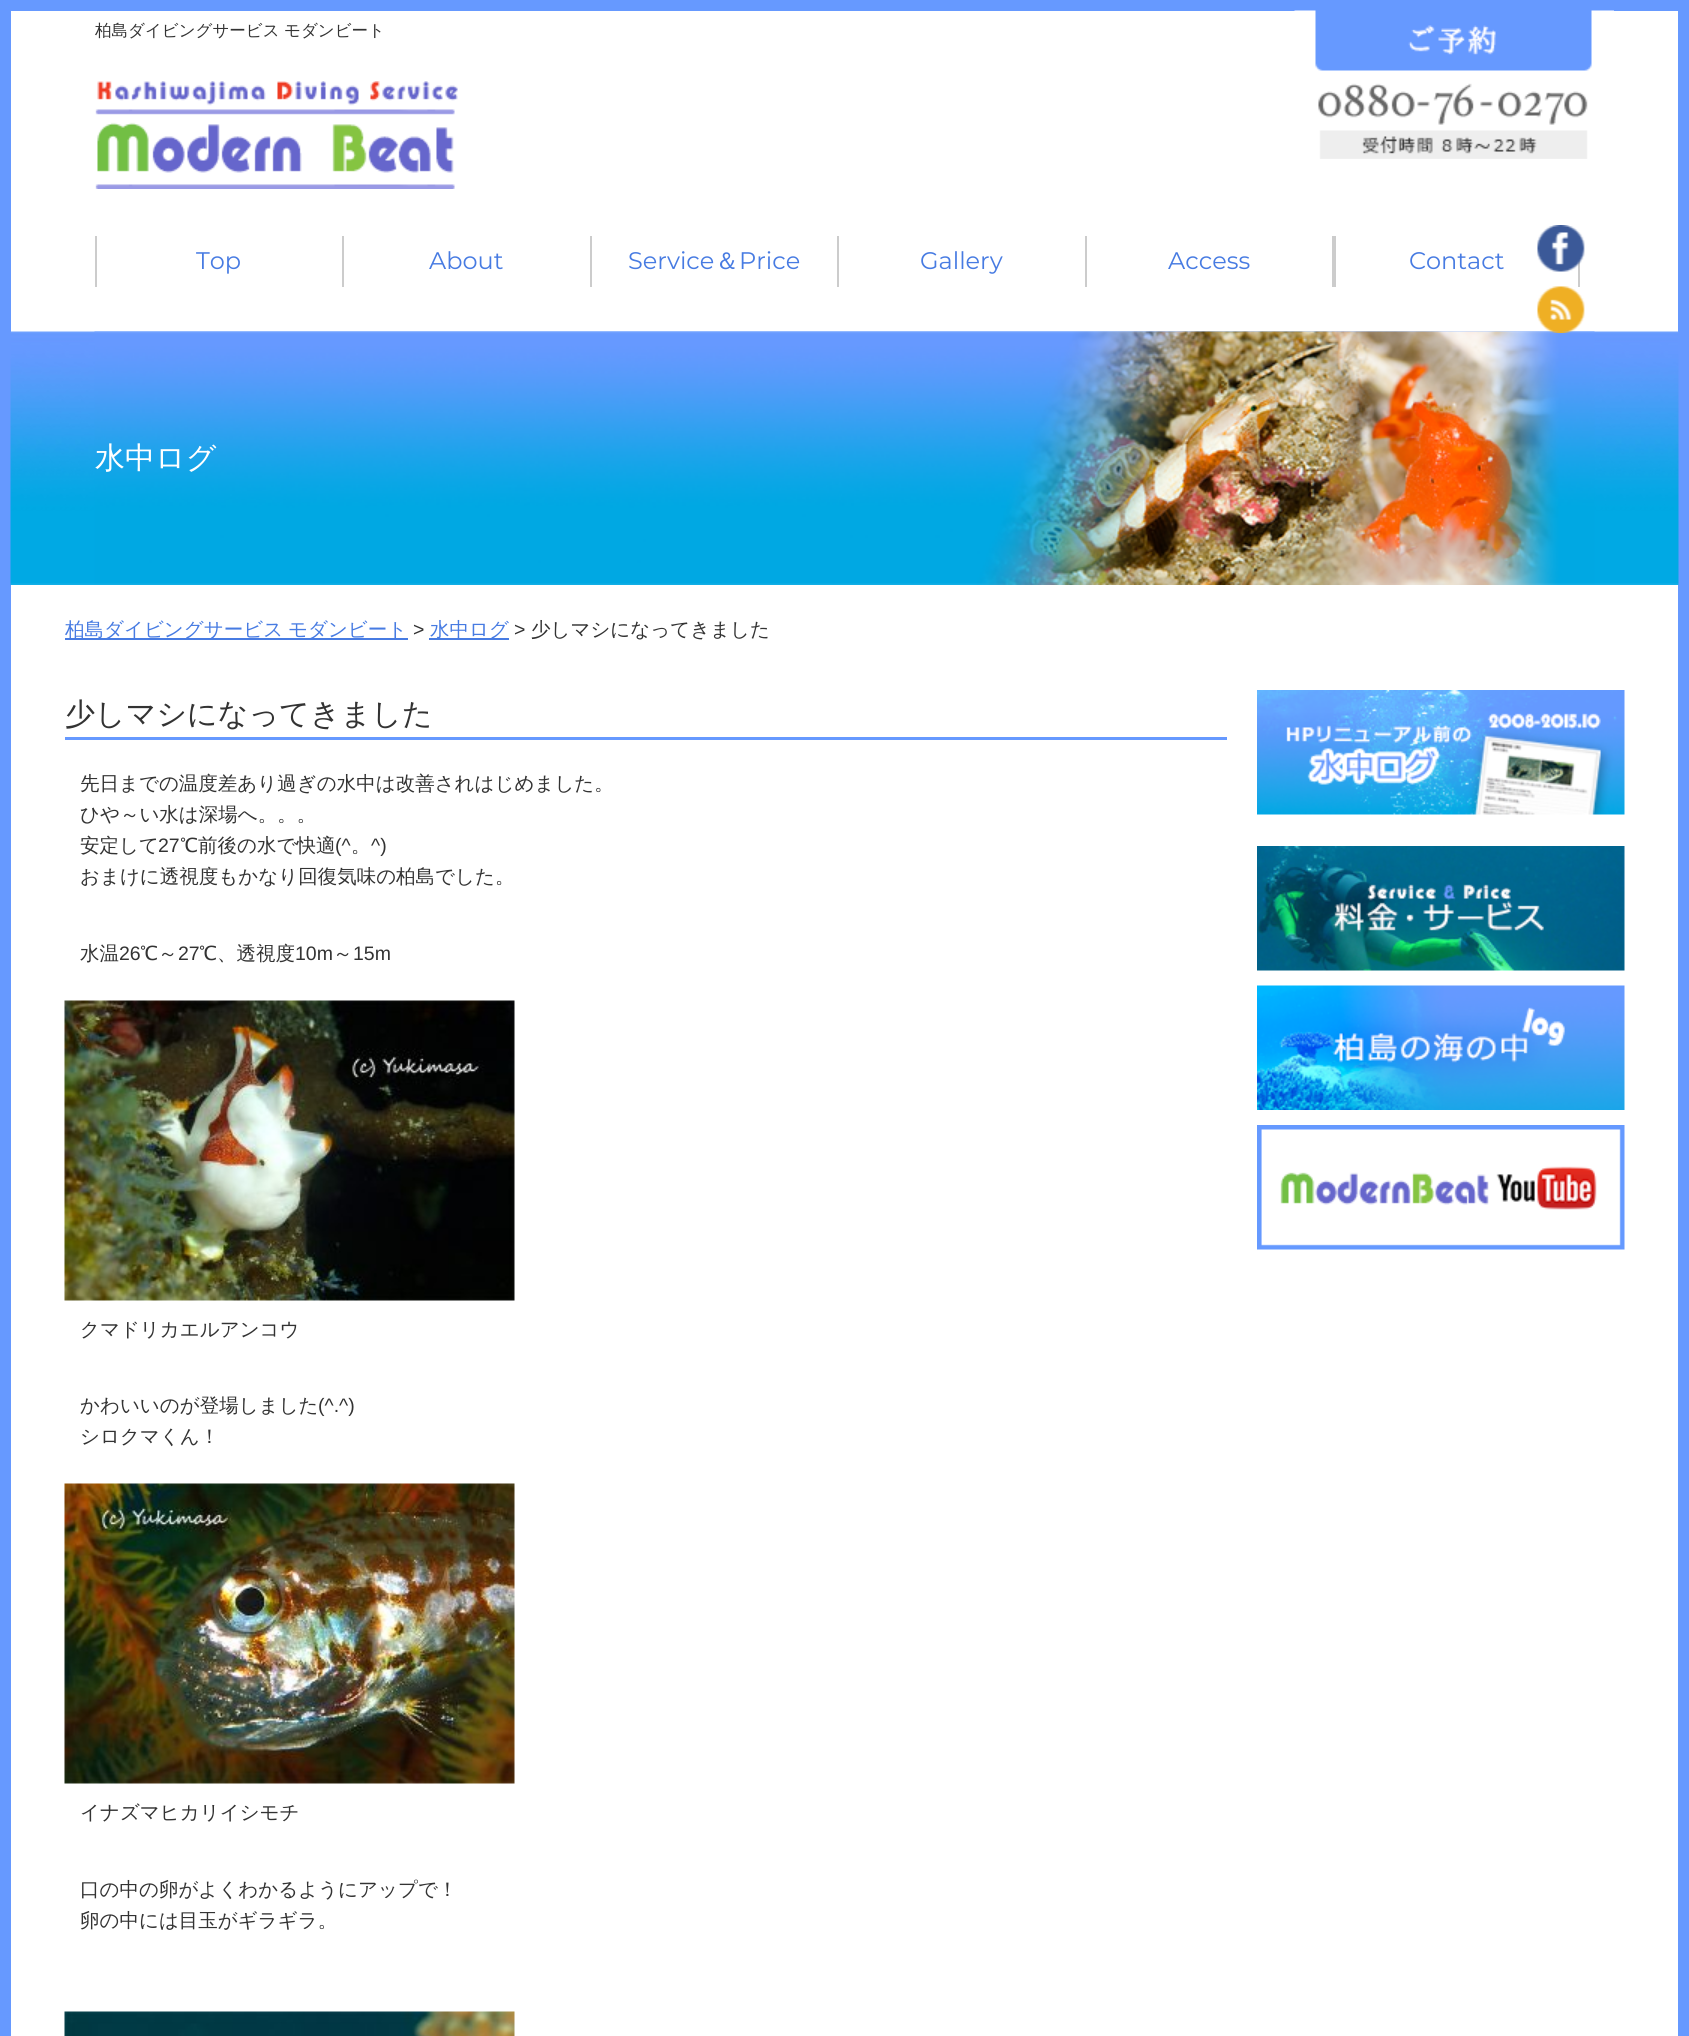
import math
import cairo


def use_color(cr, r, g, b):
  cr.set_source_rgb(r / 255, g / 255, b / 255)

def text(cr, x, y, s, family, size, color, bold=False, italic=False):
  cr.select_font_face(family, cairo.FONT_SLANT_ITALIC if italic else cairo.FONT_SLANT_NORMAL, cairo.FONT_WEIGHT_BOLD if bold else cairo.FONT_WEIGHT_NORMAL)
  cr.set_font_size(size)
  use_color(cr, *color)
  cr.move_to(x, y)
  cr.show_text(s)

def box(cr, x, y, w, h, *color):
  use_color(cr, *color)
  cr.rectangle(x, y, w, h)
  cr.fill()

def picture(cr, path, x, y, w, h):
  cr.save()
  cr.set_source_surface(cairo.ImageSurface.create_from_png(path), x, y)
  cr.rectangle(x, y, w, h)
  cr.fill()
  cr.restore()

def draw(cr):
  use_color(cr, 255, 255, 255)
  cr.paint()
  cr.rectangle(5.5, 5.5, 1678, 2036)
  use_color(cr, 102, 153, 255)
  cr.set_line_width(11)
  cr.stroke()
  picture(cr, "img_01.png", 1294, 10, 320, 149)
  picture(cr, "img_02.png", 95, 81, 363, 108)
  box(cr, 95, 236, 2, 51, 204, 204, 204)
  box(cr, 342, 236, 2, 51, 204, 204, 204)
  box(cr, 590, 236, 2, 51, 204, 204, 204)
  box(cr, 837, 236, 2, 51, 204, 204, 204)
  box(cr, 1085, 236, 2, 51, 204, 204, 204)
  box(cr, 1332, 236, 4, 51, 204, 204, 204)
  box(cr, 1578, 236, 2, 51, 204, 204, 204)
  picture(cr, "img_03.png", 1537, 225, 48, 47)
  picture(cr, "img_05.png", 10, 331, 1669, 254)
  picture(cr, "img_06.png", 94, 331, 1501, 254)
  picture(cr, "img_04.png", 1537, 286, 48, 47)
  box(cr, 65, 638, 343, 2, 71, 123, 226)
  box(cr, 429, 638, 80, 2, 71, 123, 226)
  box(cr, 65, 737, 1162, 3, 102, 153, 255)
  picture(cr, "img_07.png", 64, 1000, 451, 301)
  picture(cr, "img_08.png", 64, 1483, 451, 301)
  picture(cr, "img_09.png", 64, 2011, 451, 25)
  picture(cr, "img_10.png", 1257, 690, 368, 125)
  picture(cr, "img_11.png", 1257, 846, 368, 125)
  picture(cr, "img_12.png", 1257, 985, 368, 125)
  picture(cr, "img_13.png", 1257, 1125, 368, 125)
  text(cr, 95, 36, "柏島ダイビングサービス", "WenQuanYi Zen Hei Medium", 16.5, (51, 51, 51))
  text(cr, 284, 36, "モダンビート", "WenQuanYi Zen Hei Medium", 16.5, (51, 51, 51))
  text(cr, 196, 269, "Top", "Montserrat Thin", 24, (71, 123, 226))
  text(cr, 429, 269, "About", "Montserrat Thin", 24, (71, 123, 226))
  text(cr, 628, 269, "Service", "Montserrat Thin", 24, (71, 123, 226))
  text(cr, 715, 269, "＆", "WenQuanYi Zen Hei Medium", 24, (71, 123, 226))
  text(cr, 739, 269, "Price", "Montserrat Thin", 24, (71, 123, 226))
  text(cr, 920, 269, "Gallery", "Montserrat Thin", 24, (71, 123, 226))
  text(cr, 1168, 269, "Access", "Montserrat Thin", 24, (71, 123, 226))
  text(cr, 1409, 269, "Contact", "Montserrat Thin", 24, (71, 123, 226))
  text(cr, 95, 468, "水中ログ", "WenQuanYi Zen Hei Medium", 30, (255, 255, 255))
  text(cr, 65, 636, "柏島ダイビングサービス", "WenQuanYi Zen Hei Medium", 19.5, (71, 123, 226))
  text(cr, 288, 636, "モダンビート", "WenQuanYi Zen Hei Medium", 19.5, (71, 123, 226))
  text(cr, 413, 636, ">", "Liberation Sans", 19.5, (51, 51, 51))
  text(cr, 430, 636, "水中ログ", "WenQuanYi Zen Hei Medium", 19.5, (71, 123, 226))
  text(cr, 514, 636, ">", "Liberation Sans", 19.5, (51, 51, 51))
  text(cr, 531, 636, "少しマシになってきました", "WenQuanYi Zen Hei Medium", 19.5, (51, 51, 51))
  text(cr, 65, 724, "少しマシになってきました", "WenQuanYi Zen Hei Medium", 30, (51, 51, 51))
  text(cr, 80, 790, "先日までの温度差あり過ぎの水中は改善されはじめました。", "WenQuanYi Zen Hei Medium", 19.5, (51, 51, 51))
  text(cr, 80, 821, "ひや～い水は深場へ。。。", "WenQuanYi Zen Hei Medium", 19.5, (51, 51, 51))
  text(cr, 80, 852, "安定して", "WenQuanYi Zen Hei Medium", 19.5, (51, 51, 51))
  text(cr, 158, 852, "27", "Liberation Sans", 19.5, (51, 51, 51))
  text(cr, 180, 852, "℃前後の水で快適", "WenQuanYi Zen Hei Medium", 19.5, (51, 51, 51))
  text(cr, 335, 852, "(^", "Liberation Sans", 19.5, (51, 51, 51))
  text(cr, 351, 852, "。", "WenQuanYi Zen Hei Medium", 19.5, (51, 51, 51))
  text(cr, 371, 852, "^)", "Liberation Sans", 19.5, (51, 51, 51))
  text(cr, 80, 883, "おまけに透視度もかなり回復気味の柏島でした。", "WenQuanYi Zen Hei Medium", 19.5, (51, 51, 51))
  text(cr, 80, 960, "水温", "WenQuanYi Zen Hei Medium", 19.5, (51, 51, 51))
  text(cr, 119, 960, "26", "Liberation Sans", 19.5, (51, 51, 51))
  text(cr, 140, 960, "℃～", "WenQuanYi Zen Hei Medium", 19.5, (51, 51, 51))
  text(cr, 178, 960, "27", "Liberation Sans", 19.5, (51, 51, 51))
  text(cr, 199, 960, "℃、透視度", "WenQuanYi Zen Hei Medium", 19.5, (51, 51, 51))
  text(cr, 295, 960, "10m", "Liberation Sans", 19.5, (51, 51, 51))
  text(cr, 333, 960, "～", "WenQuanYi Zen Hei Medium", 19.5, (51, 51, 51))
  text(cr, 353, 960, "15m", "Liberation Sans", 19.5, (51, 51, 51))
  text(cr, 80, 1336, "クマドリカエルアンコウ", "WenQuanYi Zen Hei Medium", 19.5, (51, 51, 51))
  text(cr, 80, 1412, "かわいいのが登場しました", "WenQuanYi Zen Hei Medium", 19.5, (51, 51, 51))
  text(cr, 318, 1412, "(^.^)", "Liberation Sans", 19.5, (51, 51, 51))
  text(cr, 80, 1443, "シロクマくん！", "WenQuanYi Zen Hei Medium", 19.5, (51, 51, 51))
  text(cr, 80, 1819, "イナズマヒカリイシモチ", "WenQuanYi Zen Hei Medium", 19.5, (51, 51, 51))
  text(cr, 80, 1896, "口の中の卵がよくわかるようにアップで！", "WenQuanYi Zen Hei Medium", 19.5, (51, 51, 51))
  text(cr, 80, 1927, "卵の中には目玉がギラギラ。", "WenQuanYi Zen Hei Medium", 19.5, (51, 51, 51))


surface = cairo.ImageSurface(cairo.FORMAT_RGB24, 1689, 2036)
cr = cairo.Context(surface)
options = cairo.FontOptions()
options.set_hint_metrics(cairo.HINT_METRICS_OFF)
options.set_hint_style(cairo.HINT_STYLE_NONE)
cr.set_font_options(options)
cr.set_miter_limit(4)
draw(cr)
surface.write_to_png("out.png")
